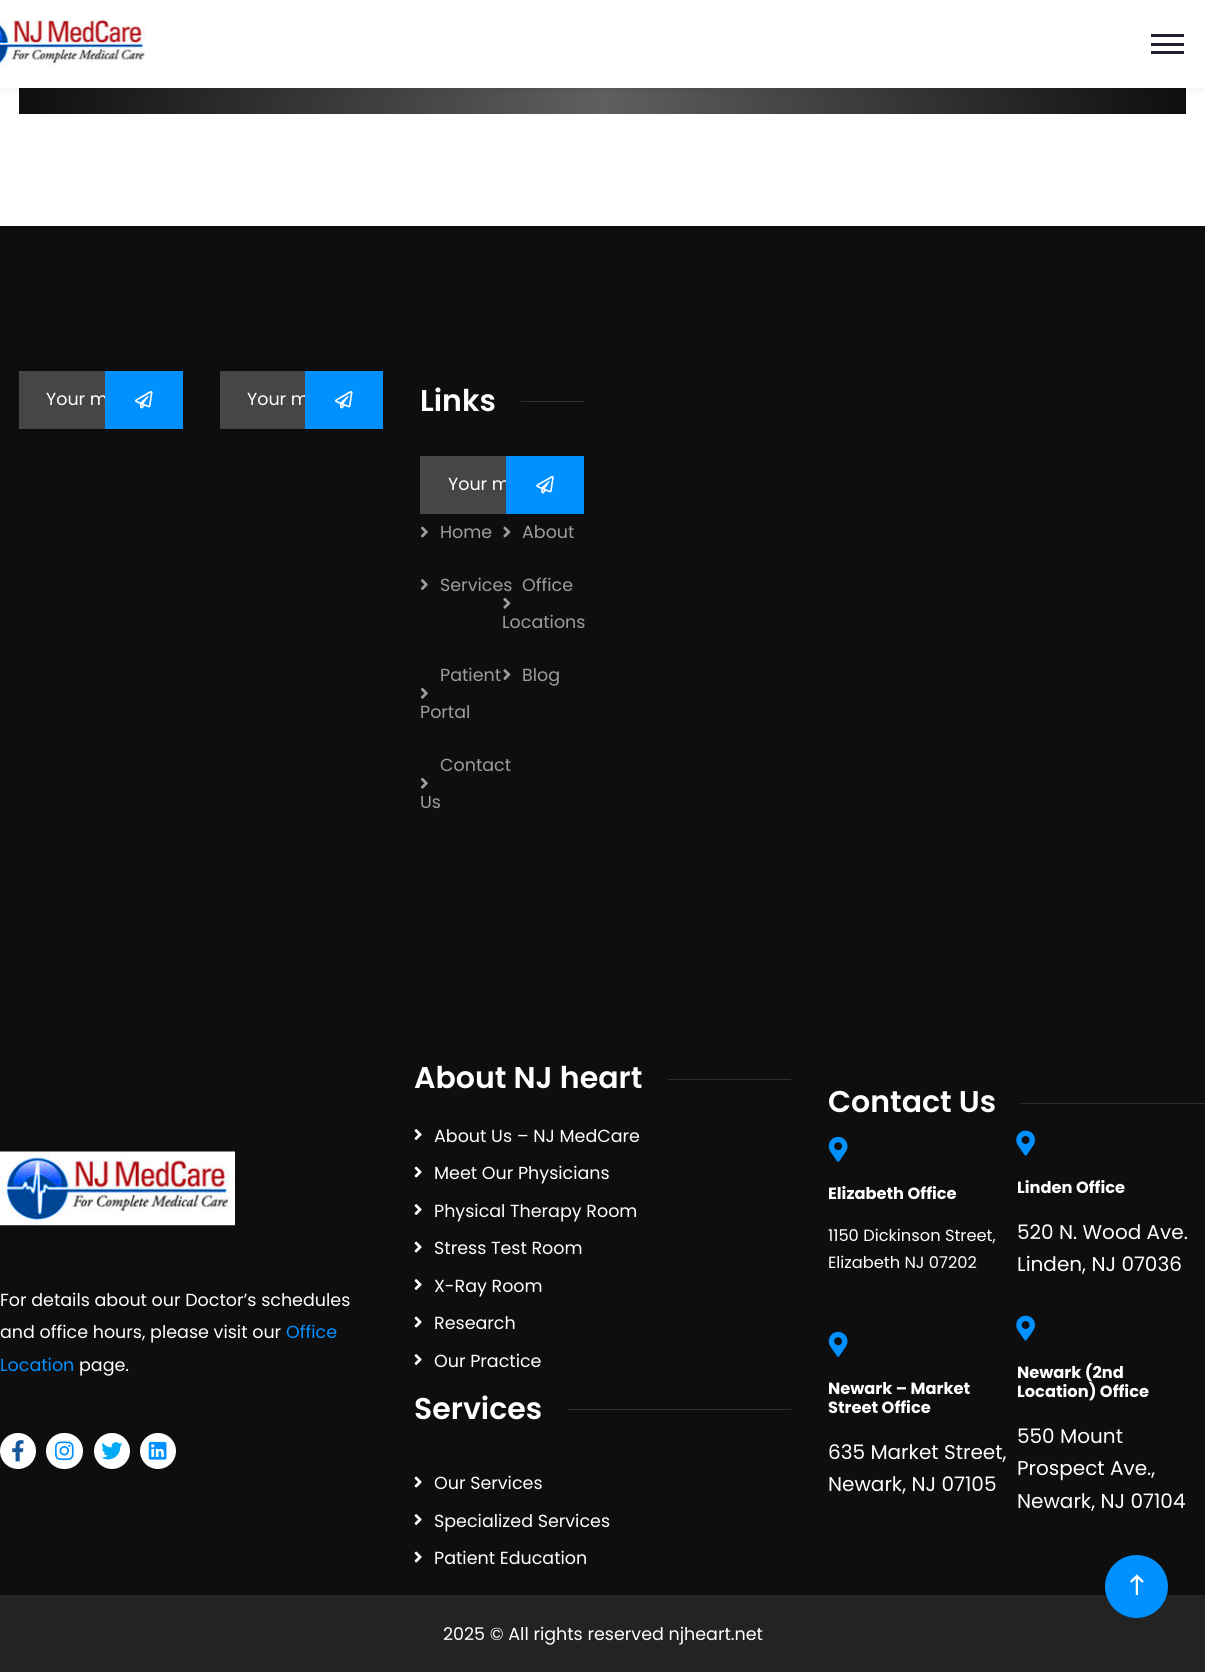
import math
import cairo


def use_color(cr, r, g, b):
  cr.set_source_rgb(r / 255, g / 255, b / 255)

def text(cr, x, y, s, family, size, color, bold=False, italic=False):
  cr.select_font_face(family, cairo.FONT_SLANT_ITALIC if italic else cairo.FONT_SLANT_NORMAL, cairo.FONT_WEIGHT_BOLD if bold else cairo.FONT_WEIGHT_NORMAL)
  cr.set_font_size(size)
  use_color(cr, *color)
  cr.move_to(x, y)
  cr.show_text(s)

def box(cr, x, y, w, h, *color):
  use_color(cr, *color)
  cr.rectangle(x, y, w, h)
  cr.fill()

def round_rect(cr, x, y, w, h, r):
  cr.new_sub_path()
  for i, (u, v) in enumerate([(x + w - r, y + h - r), (x + r, y + h - r), (x + r, y + r), (x + w - r, y + r)]):
    cr.arc(u, v, r, i * math.pi / 2, (i + 1) * math.pi / 2)
  cr.close_path()

def shadow(cr, x, y, w, h, r, blur, alpha):
  cr.push_group_with_content(cairo.CONTENT_ALPHA)
  cr.set_operator(cairo.OPERATOR_SOURCE)
  for i in range(15, -16, -2):
    e = blur * i / 6
    if min(w, h) + 2 * e > 0:
      cr.set_source_rgba(0, 0, 0, alpha * math.erfc((i - 1) / 8.5) / 2)
      round_rect(cr, x - e, y - e, w + 2 * e, h + 2 * e, max(0, min(r + e + blur * .6, min(w, h) / 2 + e)))
      cr.fill()
  cr.mask(cr.pop_group())

def picture(cr, path, x, y, w, h):
  cr.save()
  cr.set_source_surface(cairo.ImageSurface.create_from_png(path), x, y)
  cr.rectangle(x, y, w, h)
  cr.fill()
  cr.restore()

def draw(cr):
  use_color(cr, 255, 255, 255)
  cr.paint()
  gradient = cairo.LinearGradient(19, -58, 1186, -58)
  gradient.add_color_stop_rgba(0, 0.055, 0.055, 0.055, 1)
  gradient.add_color_stop_rgba(0.5, 0.373, 0.373, 0.373, 1)
  gradient.add_color_stop_rgba(1, 0.055, 0.055, 0.055, 1)
  cr.set_source(gradient)
  cr.rectangle(19, 88, 1167, 26)
  cr.fill()
  use_color(cr, 0, 0, 0)
  shadow(cr, 0, 4, 1205, 87, 0, 4, 0.05)
  box(cr, 0, 1, 1205, 87, 255, 255, 255)
  picture(cr, "img_01.png", 0, 19, 146, 49)
  box(cr, 1151, 34, 33, 3, 31, 34, 51)
  box(cr, 1151, 43, 33, 3, 31, 34, 51)
  box(cr, 1151, 51, 33, 3, 31, 34, 51)
  box(cr, 0, 226, 1205, 1369, 14, 14, 14)
  box(cr, 19, 371, 86, 58, 70, 70, 70)
  box(cr, 220, 371, 85, 58, 70, 70, 70)
  box(cr, 521, 401, 63, 1, 47, 47, 48)
  box(cr, 420, 456, 86, 58, 70, 70, 70)
  picture(cr, "img_04.png", 420, 526, 8, 12)
  picture(cr, "img_05.png", 503, 526, 8, 12)
  picture(cr, "img_06.png", 420, 579, 8, 11)
  picture(cr, "img_07.png", 503, 597, 8, 12)
  picture(cr, "img_08.png", 420, 687, 8, 12)
  picture(cr, "img_09.png", 503, 669, 8, 11)
  picture(cr, "img_08.png", 420, 777, 8, 12)
  picture(cr, "img_10.png", 0, 1151, 235, 75)
  use_color(cr, 255, 255, 255)
  cr.arc(18, 1451, 18, 0, 2 * math.pi)
  cr.fill()
  picture(cr, "img_11.png", 12, 1440, 12, 22)
  round_rect(cr, 46, 1433, 37, 36, 18)
  cr.fill()
  picture(cr, "img_12.png", 55, 1441, 19, 20)
  cr.arc(112, 1451, 18, 0, 2 * math.pi)
  cr.fill()
  picture(cr, "img_13.png", 101, 1442, 22, 18)
  cr.arc(158, 1451, 18, 0, 2 * math.pi)
  cr.fill()
  picture(cr, "img_14.png", 148, 1441, 19, 19)
  box(cr, 668, 1079, 123, 1, 47, 47, 48)
  picture(cr, "img_15.png", 414, 1129, 8, 11)
  picture(cr, "img_16.png", 414, 1166, 8, 12)
  picture(cr, "img_15.png", 414, 1204, 8, 11)
  picture(cr, "img_16.png", 414, 1241, 8, 12)
  picture(cr, "img_15.png", 414, 1279, 8, 11)
  picture(cr, "img_16.png", 414, 1316, 8, 12)
  picture(cr, "img_15.png", 414, 1354, 8, 11)
  box(cr, 568, 1409, 223, 1, 47, 47, 48)
  picture(cr, "img_16.png", 414, 1476, 8, 12)
  picture(cr, "img_15.png", 414, 1514, 8, 11)
  picture(cr, "img_16.png", 414, 1551, 8, 12)
  box(cr, 1021, 1103, 184, 1, 47, 47, 48)
  picture(cr, "img_17.png", 828, 1136, 20, 26)
  picture(cr, "img_18.png", 1016, 1130, 19, 26)
  picture(cr, "img_17.png", 828, 1331, 20, 26)
  picture(cr, "img_18.png", 1016, 1315, 19, 26)
  box(cr, 0, 1595, 1205, 77, 36, 35, 35)
  use_color(cr, 0, 144, 255)
  cr.arc(1136.5, 1586.5, 31.5, 0, 2 * math.pi)
  cr.fill()
  picture(cr, "img_19.png", 1130, 1574, 14, 21)
  text(cr, 46, 405, "Your m", "Poppins", 17.5, (255, 255, 255))
  box(cr, 105, 371, 78, 58, 0, 144, 255)
  picture(cr, "img_02.png", 135, 391, 18, 18)
  text(cr, 247, 405, "Your m", "Poppins", 17.5, (255, 255, 255))
  box(cr, 305, 371, 78, 58, 0, 144, 255)
  picture(cr, "img_02.png", 335, 391, 18, 18)
  text(cr, 420, 411, "Links", "Poppins SemiBold", 30, (255, 255, 255))
  text(cr, 448, 490, "Your m", "Poppins", 17.5, (255, 255, 255))
  box(cr, 506, 456, 78, 58, 0, 144, 255)
  picture(cr, "img_03.png", 536, 476, 18, 18)
  text(cr, 440, 538, "Home", "Poppins", 17.5, (157, 157, 157))
  text(cr, 522, 538, "About", "Poppins", 17.5, (157, 157, 157))
  text(cr, 440, 591, "Services", "Poppins", 17.5, (157, 157, 157))
  text(cr, 522, 591, "Office", "Poppins", 17.5, (157, 157, 157))
  text(cr, 502, 628, "Locations", "Poppins", 17.5, (157, 157, 157))
  text(cr, 440, 681, "Patient", "Poppins", 17.5, (157, 157, 157))
  text(cr, 420, 718, "Portal", "Poppins", 17.5, (157, 157, 157))
  text(cr, 522, 681, "Blog", "Poppins", 17.5, (157, 157, 157))
  text(cr, 440, 771, "Contact", "Poppins", 17.5, (157, 157, 157))
  text(cr, 420, 808, "Us", "Poppins", 17.5, (157, 157, 157))
  text(cr, 0, 1306, "For details about our Doctor’s schedules", "Poppins", 17.5, (255, 255, 255))
  text(cr, 0, 1338, "and office hours, please visit our", "Poppins", 17.5, (255, 255, 255))
  text(cr, 286, 1338, "Office", "Poppins", 17.5, (0, 144, 255))
  text(cr, 0, 1371, "Location", "Poppins", 17.5, (0, 144, 255))
  text(cr, 79, 1371, "page.", "Poppins", 17.5, (255, 255, 255))
  text(cr, 414, 1088, "About NJ heart", "Poppins SemiBold", 30, (255, 255, 255))
  text(cr, 434, 1142, "About Us – NJ MedCare", "Poppins", 17.5, (255, 255, 255))
  text(cr, 434, 1179, "Meet Our Physicians", "Poppins", 17.5, (255, 255, 255))
  text(cr, 434, 1217, "Physical Therapy Room", "Poppins", 17.5, (255, 255, 255))
  text(cr, 434, 1254, "Stress Test Room", "Poppins", 17.5, (255, 255, 255))
  text(cr, 434, 1292, "X-Ray Room", "Poppins", 17.5, (255, 255, 255))
  text(cr, 434, 1329, "Research", "Poppins", 17.5, (255, 255, 255))
  text(cr, 434, 1367, "Our Practice", "Poppins", 17.5, (255, 255, 255))
  text(cr, 414, 1419, "Services", "Poppins SemiBold", 30, (255, 255, 255))
  text(cr, 434, 1489, "Our Services", "Poppins", 17.5, (255, 255, 255))
  text(cr, 434, 1527, "Specialized Services", "Poppins", 17.5, (255, 255, 255))
  text(cr, 434, 1564, "Patient Education", "Poppins", 17.5, (255, 255, 255))
  text(cr, 828, 1112, "Contact Us", "Poppins SemiBold", 30, (255, 255, 255))
  text(cr, 828, 1199, "Elizabeth Office", "Poppins", 16.25, (255, 255, 255), bold=True)
  text(cr, 828, 1241, "1150 Dickinson Street,", "Poppins", 16.25, (255, 255, 255))
  text(cr, 828, 1268, "Elizabeth NJ 07202", "Poppins", 16.25, (255, 255, 255))
  text(cr, 1017, 1193, "Linden Office", "Poppins", 16.25, (255, 255, 255), bold=True)
  text(cr, 1017, 1239, "520 N. Wood Ave.", "Poppins", 20, (255, 255, 255))
  text(cr, 1017, 1271, "Linden, NJ 07036", "Poppins", 20, (255, 255, 255))
  text(cr, 828, 1394, "Newark – Market", "Poppins", 16.25, (255, 255, 255), bold=True)
  text(cr, 828, 1413, "Street Office", "Poppins", 16.25, (255, 255, 255), bold=True)
  text(cr, 828, 1459, "635 Market Street,", "Poppins", 20, (255, 255, 255))
  text(cr, 828, 1491, "Newark, NJ 07105", "Poppins", 20, (255, 255, 255))
  text(cr, 1017, 1378, "Newark (2nd", "Poppins", 16.25, (255, 255, 255), bold=True)
  text(cr, 1017, 1397, "Location) Office", "Poppins", 16.25, (255, 255, 255), bold=True)
  text(cr, 1017, 1443, "550 Mount", "Poppins", 20, (255, 255, 255))
  text(cr, 1017, 1475, "Prospect Ave.,", "Poppins", 20, (255, 255, 255))
  text(cr, 1017, 1508, "Newark, NJ 07104", "Poppins", 20, (255, 255, 255))
  text(cr, 443, 1640, "2025 © All rights reserved njheart.net", "Poppins", 17.5, (255, 255, 255))


surface = cairo.ImageSurface(cairo.FORMAT_RGB24, 1205, 1672)
cr = cairo.Context(surface)
options = cairo.FontOptions()
options.set_hint_metrics(cairo.HINT_METRICS_OFF)
options.set_hint_style(cairo.HINT_STYLE_NONE)
cr.set_font_options(options)
cr.set_miter_limit(4)
draw(cr)
surface.write_to_png("out.png")
